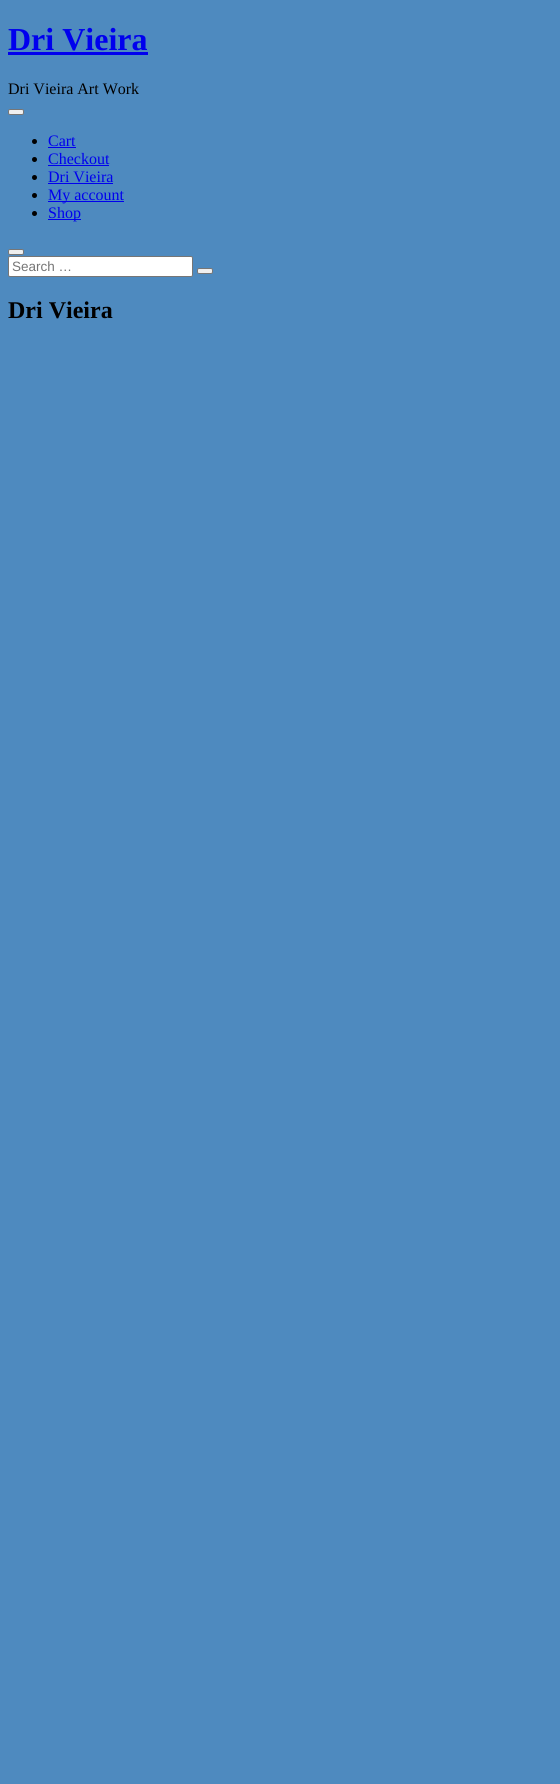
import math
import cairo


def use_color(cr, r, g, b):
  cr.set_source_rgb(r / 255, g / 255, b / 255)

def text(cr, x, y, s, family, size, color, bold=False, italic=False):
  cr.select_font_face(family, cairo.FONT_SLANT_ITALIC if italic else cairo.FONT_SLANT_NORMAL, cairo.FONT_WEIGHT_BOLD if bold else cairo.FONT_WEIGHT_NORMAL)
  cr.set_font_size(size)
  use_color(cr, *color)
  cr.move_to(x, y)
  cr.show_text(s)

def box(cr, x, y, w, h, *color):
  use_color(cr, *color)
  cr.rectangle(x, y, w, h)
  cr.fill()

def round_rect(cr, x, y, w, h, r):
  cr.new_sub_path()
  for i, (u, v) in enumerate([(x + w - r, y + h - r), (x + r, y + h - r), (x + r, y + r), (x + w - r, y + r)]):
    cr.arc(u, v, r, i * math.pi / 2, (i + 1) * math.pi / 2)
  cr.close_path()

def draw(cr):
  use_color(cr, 78, 138, 191)
  cr.paint()
  box(cr, 8, 52, 140, 3, 0, 0, 238)
  use_color(cr, 239, 239, 239)
  round_rect(cr, 8.5, 109.5, 15, 5, 1.5)
  cr.fill_preserve()
  use_color(cr, 118, 118, 118)
  cr.set_line_width(1)
  cr.stroke()
  use_color(cr, 0, 0, 0)
  cr.arc(34.5, 141.5, 2.5, 0, 2 * math.pi)
  cr.fill()
  box(cr, 48, 147, 28, 1, 0, 0, 238)
  use_color(cr, 0, 0, 0)
  cr.arc(34.5, 159.5, 2.5, 0, 2 * math.pi)
  cr.fill()
  box(cr, 48, 165, 61, 1, 0, 0, 238)
  use_color(cr, 0, 0, 0)
  cr.arc(34.5, 177.5, 2.5, 0, 2 * math.pi)
  cr.fill()
  box(cr, 48, 183, 65, 1, 0, 0, 238)
  use_color(cr, 0, 0, 0)
  cr.arc(34.5, 195.5, 2.5, 0, 2 * math.pi)
  cr.fill()
  box(cr, 48, 201, 76, 1, 0, 0, 238)
  use_color(cr, 0, 0, 0)
  cr.arc(34.5, 213.5, 2.5, 0, 2 * math.pi)
  cr.fill()
  box(cr, 48, 219, 33, 1, 0, 0, 238)
  use_color(cr, 239, 239, 239)
  round_rect(cr, 8.5, 249.5, 15, 5, 1.5)
  cr.fill_preserve()
  use_color(cr, 118, 118, 118)
  cr.stroke()
  use_color(cr, 255, 255, 255)
  round_rect(cr, 8.5, 256.5, 184, 20, 1.5)
  cr.fill_preserve()
  use_color(cr, 118, 118, 118)
  cr.stroke()
  use_color(cr, 239, 239, 239)
  round_rect(cr, 197.5, 268.5, 15, 5, 1.5)
  cr.fill_preserve()
  use_color(cr, 118, 118, 118)
  cr.stroke()
  text(cr, 8, 50, "Dri Vieira", "Liberation Serif", 32, (0, 0, 238), bold=True)
  text(cr, 8, 94, "Dri Vieira Art Work", "Liberation Serif", 16, (0, 0, 0))
  text(cr, 48, 146, "Cart", "Liberation Serif", 16, (0, 0, 238))
  text(cr, 48, 164, "Checkout", "Liberation Serif", 16, (0, 0, 238))
  text(cr, 48, 182, "Dri Vieira", "Liberation Serif", 16, (0, 0, 238))
  text(cr, 48, 200, "My account", "Liberation Serif", 16, (0, 0, 238))
  text(cr, 48, 218, "Shop", "Liberation Serif", 16, (0, 0, 238))
  text(cr, 12, 271, "Search …", "Liberation Sans", 13.5, (117, 117, 117))
  text(cr, 8, 318, "Dri Vieira", "Liberation Serif", 24, (0, 0, 0), bold=True)


surface = cairo.ImageSurface(cairo.FORMAT_RGB24, 560, 1784)
cr = cairo.Context(surface)
options = cairo.FontOptions()
options.set_hint_metrics(cairo.HINT_METRICS_OFF)
options.set_hint_style(cairo.HINT_STYLE_NONE)
cr.set_font_options(options)
cr.set_miter_limit(4)
draw(cr)
surface.write_to_png("out.png")
